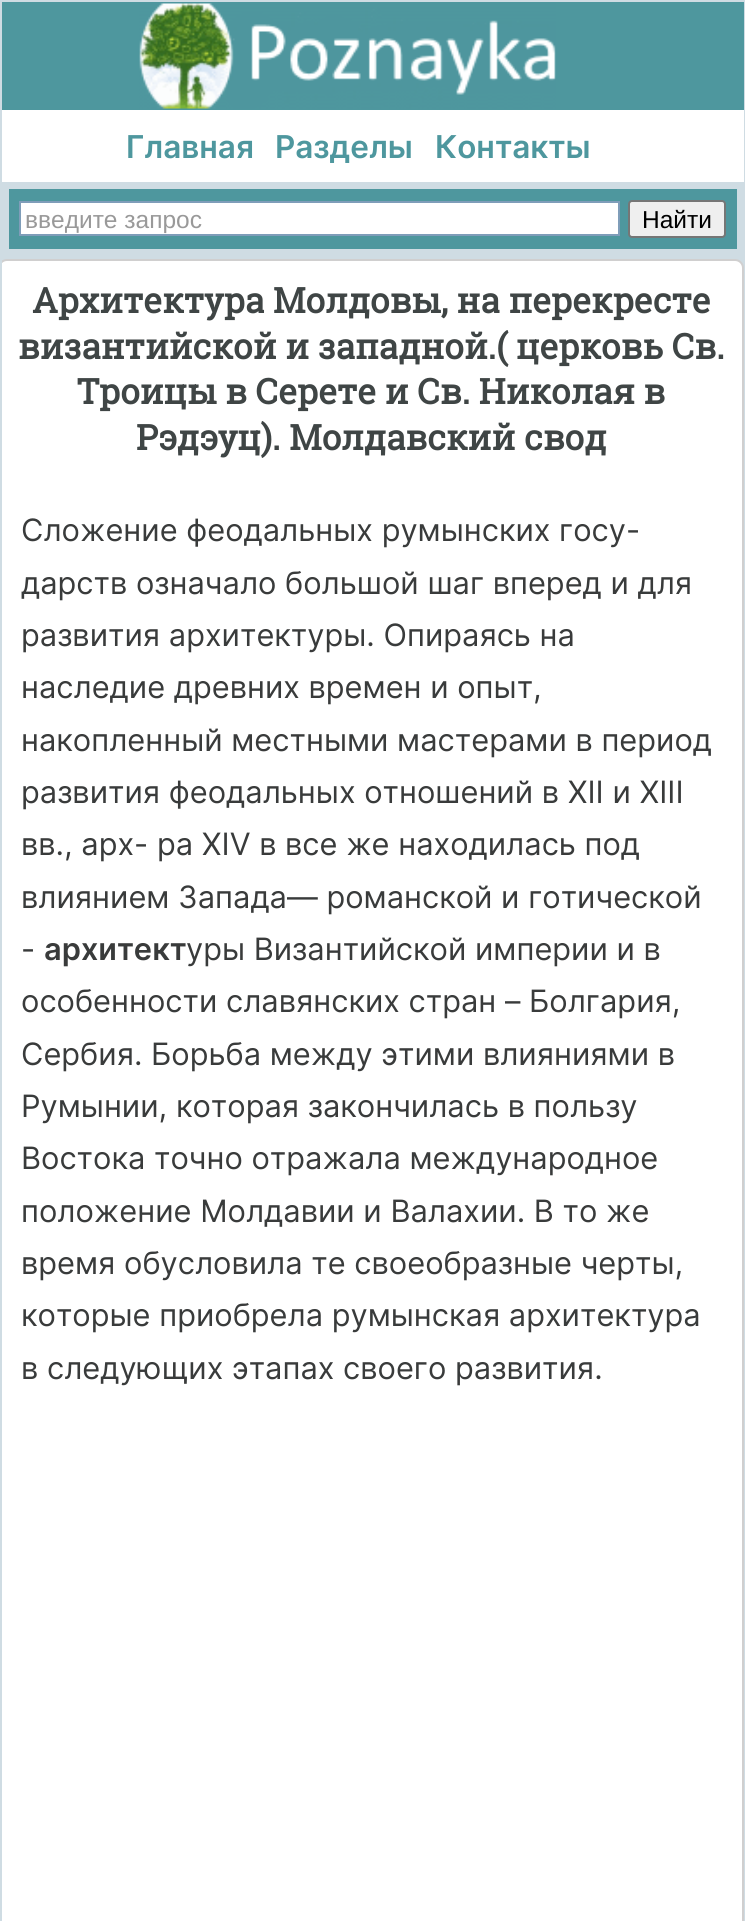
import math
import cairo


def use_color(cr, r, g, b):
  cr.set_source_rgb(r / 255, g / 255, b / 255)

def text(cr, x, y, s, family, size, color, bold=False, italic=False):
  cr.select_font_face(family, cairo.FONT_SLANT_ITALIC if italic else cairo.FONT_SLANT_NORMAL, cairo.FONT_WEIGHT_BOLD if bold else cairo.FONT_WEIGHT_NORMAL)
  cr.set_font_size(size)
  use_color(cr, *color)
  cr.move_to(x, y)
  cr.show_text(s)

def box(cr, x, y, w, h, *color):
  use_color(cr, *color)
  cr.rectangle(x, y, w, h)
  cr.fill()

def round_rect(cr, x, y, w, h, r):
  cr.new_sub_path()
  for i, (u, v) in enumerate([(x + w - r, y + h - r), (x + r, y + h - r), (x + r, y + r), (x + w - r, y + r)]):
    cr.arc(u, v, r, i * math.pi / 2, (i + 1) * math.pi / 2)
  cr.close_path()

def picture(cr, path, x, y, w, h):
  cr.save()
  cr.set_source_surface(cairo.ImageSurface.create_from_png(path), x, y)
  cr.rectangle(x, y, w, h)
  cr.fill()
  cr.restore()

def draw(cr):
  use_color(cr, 207, 220, 227)
  cr.paint()
  box(cr, 2, 2, 742, 108, 78, 151, 158)
  picture(cr, "img_01.png", 139, 3, 417, 106)
  box(cr, 2, 110, 742, 72, 255, 255, 255)
  box(cr, 9, 189, 728, 60, 78, 151, 158)
  use_color(cr, 255, 255, 255)
  cr.rectangle(20, 202, 599, 33)
  cr.fill_preserve()
  use_color(cr, 127, 157, 185)
  cr.stroke()
  use_color(cr, 239, 239, 239)
  round_rect(cr, 629, 201, 96, 36, 3)
  cr.fill_preserve()
  use_color(cr, 118, 118, 118)
  cr.stroke()
  cr.save()
  cr.rectangle(2, 2, 742, 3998)
  cr.clip()
  use_color(cr, 255, 255, 255)
  round_rect(cr, -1, 260, 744, 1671, 8)
  cr.fill_preserve()
  use_color(cr, 208, 207, 207)
  cr.stroke()
  cr.restore()
  text(cr, 126, 158, "Главная", "Inter SemiBold", 31.5, (78, 151, 158))
  text(cr, 275, 158, "Разделы", "Inter SemiBold", 31.5, (78, 151, 158))
  text(cr, 435, 158, "Контакты", "Inter SemiBold", 31.5, (78, 151, 158))
  text(cr, 25, 228, "введите запрос", "Liberation Sans", 24.5, (153, 153, 153))
  text(cr, 642, 228, "Найти", "Liberation Sans", 24.5, (0, 0, 0))
  text(cr, 32, 313, "Архитектура Молдовы, на перекресте", "Roboto Slab", 35, (63, 69, 69), bold=True)
  text(cr, 18, 359, "византийской и западной.( церковь Св.", "Roboto Slab", 35, (63, 69, 69), bold=True)
  text(cr, 77, 404, "Троицы в Серете и Св. Николая в", "Roboto Slab", 35, (63, 69, 69), bold=True)
  text(cr, 136, 450, "Рэдэуц). Молдавский свод", "Roboto Slab", 35, (63, 69, 69), bold=True)
  text(cr, 21, 541, "Сложение феодальных румынских госу-", "Inter", 30.8, (57, 59, 59))
  text(cr, 21, 594, "дарств означало большой шаг вперед и для", "Inter", 30.8, (57, 59, 59))
  text(cr, 21, 646, "развития архитектуры. Опираясь на", "Inter", 30.8, (57, 59, 59))
  text(cr, 21, 698, "наследие древних времен и опыт,", "Inter", 30.8, (57, 59, 59))
  text(cr, 21, 751, "накопленный местными мастерами в период", "Inter", 30.8, (57, 59, 59))
  text(cr, 21, 803, "развития феодальных отношений в XII и XIII", "Inter", 30.8, (57, 59, 59))
  text(cr, 21, 855, "вв., арх- ра XIV в все же находилась под", "Inter", 30.8, (57, 59, 59))
  text(cr, 21, 908, "влиянием Запада— романской и готической", "Inter", 30.8, (57, 59, 59))
  text(cr, 21, 960, "-", "Inter", 30.8, (57, 59, 59))
  text(cr, 44, 960, "архитект", "Inter SemiBold", 30.8, (57, 59, 59))
  text(cr, 186, 960, "уры Византийской империи и в", "Inter", 30.8, (57, 59, 59))
  text(cr, 21, 1012, "особенности славянских стран – Болгария,", "Inter", 30.8, (57, 59, 59))
  text(cr, 21, 1065, "Сербия. Борьба между этими влияниями в", "Inter", 30.8, (57, 59, 59))
  text(cr, 21, 1117, "Румынии, которая закончилась в пользу", "Inter", 30.8, (57, 59, 59))
  text(cr, 21, 1169, "Востока точно отражала международное", "Inter", 30.8, (57, 59, 59))
  text(cr, 21, 1222, "положение Молдавии и Валахии. В то же", "Inter", 30.8, (57, 59, 59))
  text(cr, 21, 1274, "время обусловила те своеобразные черты,", "Inter", 30.8, (57, 59, 59))
  text(cr, 21, 1326, "которые приобрела румынская архитектура", "Inter", 30.8, (57, 59, 59))
  text(cr, 21, 1379, "в следующих этапах своего развития.", "Inter", 30.8, (57, 59, 59))


surface = cairo.ImageSurface(cairo.FORMAT_RGB24, 745, 1921)
cr = cairo.Context(surface)
options = cairo.FontOptions()
options.set_hint_metrics(cairo.HINT_METRICS_OFF)
options.set_hint_style(cairo.HINT_STYLE_NONE)
cr.set_font_options(options)
cr.set_miter_limit(4)
draw(cr)
surface.write_to_png("out.png")
